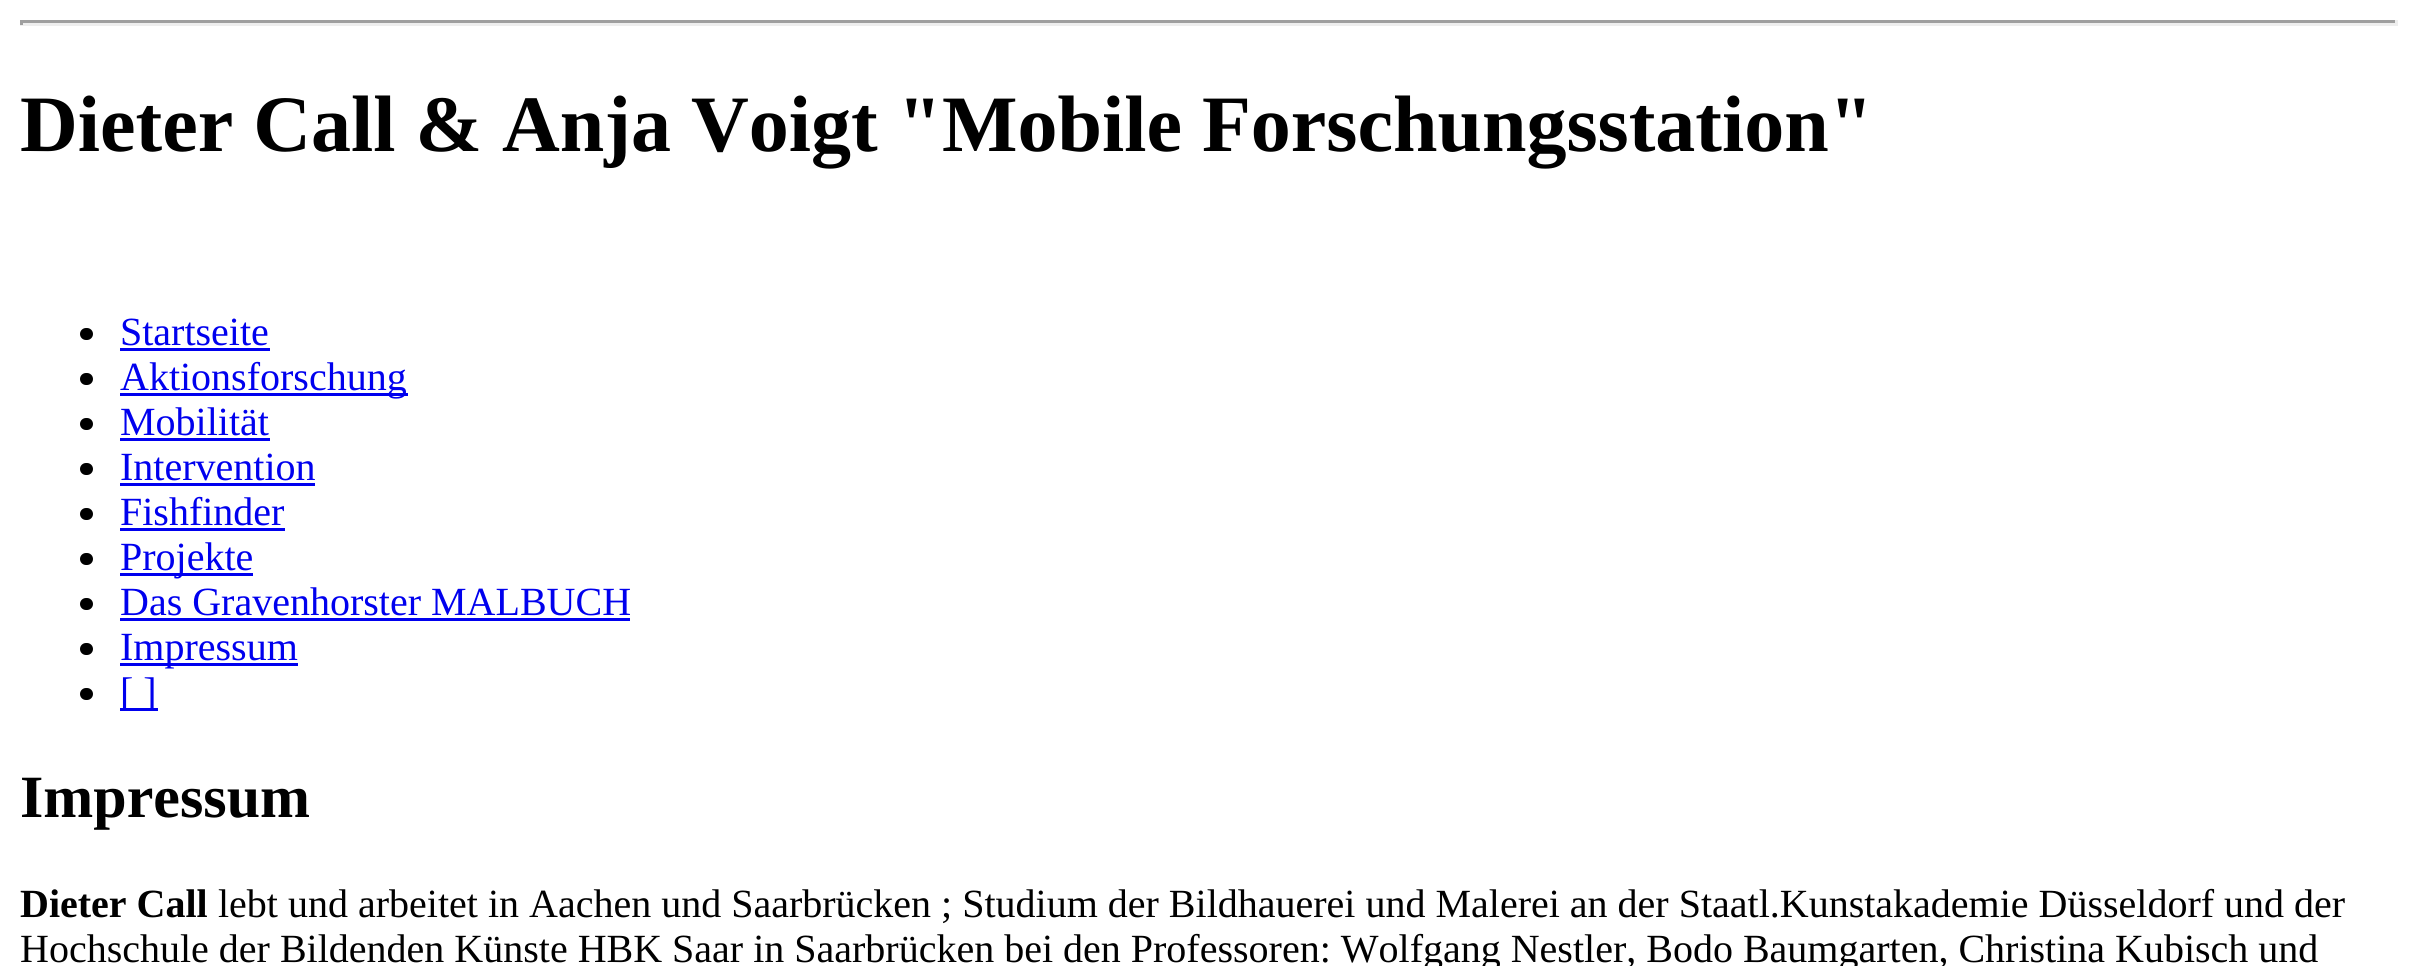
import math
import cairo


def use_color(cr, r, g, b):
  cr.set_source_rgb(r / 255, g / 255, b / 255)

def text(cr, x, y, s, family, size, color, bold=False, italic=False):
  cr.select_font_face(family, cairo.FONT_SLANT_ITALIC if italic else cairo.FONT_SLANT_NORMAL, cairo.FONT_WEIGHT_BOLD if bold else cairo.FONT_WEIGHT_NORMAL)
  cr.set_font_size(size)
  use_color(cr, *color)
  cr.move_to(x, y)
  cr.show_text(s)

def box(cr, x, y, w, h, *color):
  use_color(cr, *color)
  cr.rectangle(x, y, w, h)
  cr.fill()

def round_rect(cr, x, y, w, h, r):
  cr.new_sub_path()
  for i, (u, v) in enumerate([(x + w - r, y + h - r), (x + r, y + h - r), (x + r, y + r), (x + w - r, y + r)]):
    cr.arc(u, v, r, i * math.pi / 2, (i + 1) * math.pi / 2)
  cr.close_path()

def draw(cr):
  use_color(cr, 255, 255, 255)
  cr.paint()
  box(cr, 20, 20, 2378, 3, 159, 159, 159)
  box(cr, 2395, 20, 3, 5, 238, 238, 238)
  box(cr, 20, 23, 2378, 3, 238, 238, 238)
  box(cr, 20, 20, 3, 5, 159, 159, 159)
  use_color(cr, 0, 0, 0)
  round_rect(cr, 80, 328, 13, 12, 6)
  cr.fill()
  box(cr, 120, 348, 150, 3, 0, 0, 238)
  use_color(cr, 0, 0, 0)
  round_rect(cr, 80, 373, 13, 12, 6)
  cr.fill()
  box(cr, 120, 393, 288, 3, 0, 0, 238)
  use_color(cr, 0, 0, 0)
  round_rect(cr, 80, 418, 13, 12, 6)
  cr.fill()
  box(cr, 120, 438, 150, 3, 0, 0, 238)
  use_color(cr, 0, 0, 0)
  round_rect(cr, 80, 463, 13, 12, 6)
  cr.fill()
  box(cr, 120, 483, 195, 3, 0, 0, 238)
  use_color(cr, 0, 0, 0)
  round_rect(cr, 80, 508, 13, 12, 6)
  cr.fill()
  box(cr, 120, 528, 165, 3, 0, 0, 238)
  use_color(cr, 0, 0, 0)
  round_rect(cr, 80, 553, 13, 12, 6)
  cr.fill()
  box(cr, 120, 573, 133, 3, 0, 0, 238)
  use_color(cr, 0, 0, 0)
  round_rect(cr, 80, 598, 13, 12, 6)
  cr.fill()
  box(cr, 120, 618, 510, 3, 0, 0, 238)
  use_color(cr, 0, 0, 0)
  round_rect(cr, 80, 643, 13, 12, 6)
  cr.fill()
  box(cr, 120, 663, 178, 3, 0, 0, 238)
  use_color(cr, 0, 0, 0)
  round_rect(cr, 80, 688, 13, 12, 6)
  cr.fill()
  box(cr, 120, 708, 38, 3, 0, 0, 238)
  text(cr, 20, 151, "Dieter Call & Anja Voigt \"Mobile Forschungsstation\"", "Liberation Serif", 80, (0, 0, 0), bold=True)
  text(cr, 120, 345, "Startseite", "Liberation Serif", 40, (0, 0, 238))
  text(cr, 120, 390, "Aktionsforschung", "Liberation Serif", 40, (0, 0, 238))
  text(cr, 120, 435, "Mobilität", "Liberation Serif", 40, (0, 0, 238))
  text(cr, 120, 480, "Intervention", "Liberation Serif", 40, (0, 0, 238))
  text(cr, 120, 525, "Fishfinder", "Liberation Serif", 40, (0, 0, 238))
  text(cr, 120, 570, "Projekte", "Liberation Serif", 40, (0, 0, 238))
  text(cr, 120, 615, "Das Gravenhorster MALBUCH", "Liberation Serif", 40, (0, 0, 238))
  text(cr, 120, 660, "Impressum", "Liberation Serif", 40, (0, 0, 238))
  text(cr, 120, 705, "[ ]", "Liberation Serif", 40, (0, 0, 238))
  text(cr, 20, 817, "Impressum", "Liberation Serif", 60, (0, 0, 0), bold=True)
  text(cr, 20, 917, "Dieter Call", "Liberation Serif", 40, (0, 0, 0), bold=True)
  text(cr, 218, 917, "lebt und arbeitet in Aachen und Saarbrücken ; Studium der Bildhauerei und Malerei an der Staatl.Kunstakademie Düsseldorf und der", "Liberation Serif", 40, (0, 0, 0))
  text(cr, 20, 962, "Hochschule der Bildenden Künste HBK Saar in Saarbrücken bei den Professoren: Wolfgang Nestler, Bodo Baumgarten, Christina Kubisch und", "Liberation Serif", 40, (0, 0, 0))


surface = cairo.ImageSurface(cairo.FORMAT_RGB24, 2416, 966)
cr = cairo.Context(surface)
options = cairo.FontOptions()
options.set_hint_metrics(cairo.HINT_METRICS_OFF)
options.set_hint_style(cairo.HINT_STYLE_NONE)
cr.set_font_options(options)
cr.set_miter_limit(4)
draw(cr)
surface.write_to_png("out.png")
